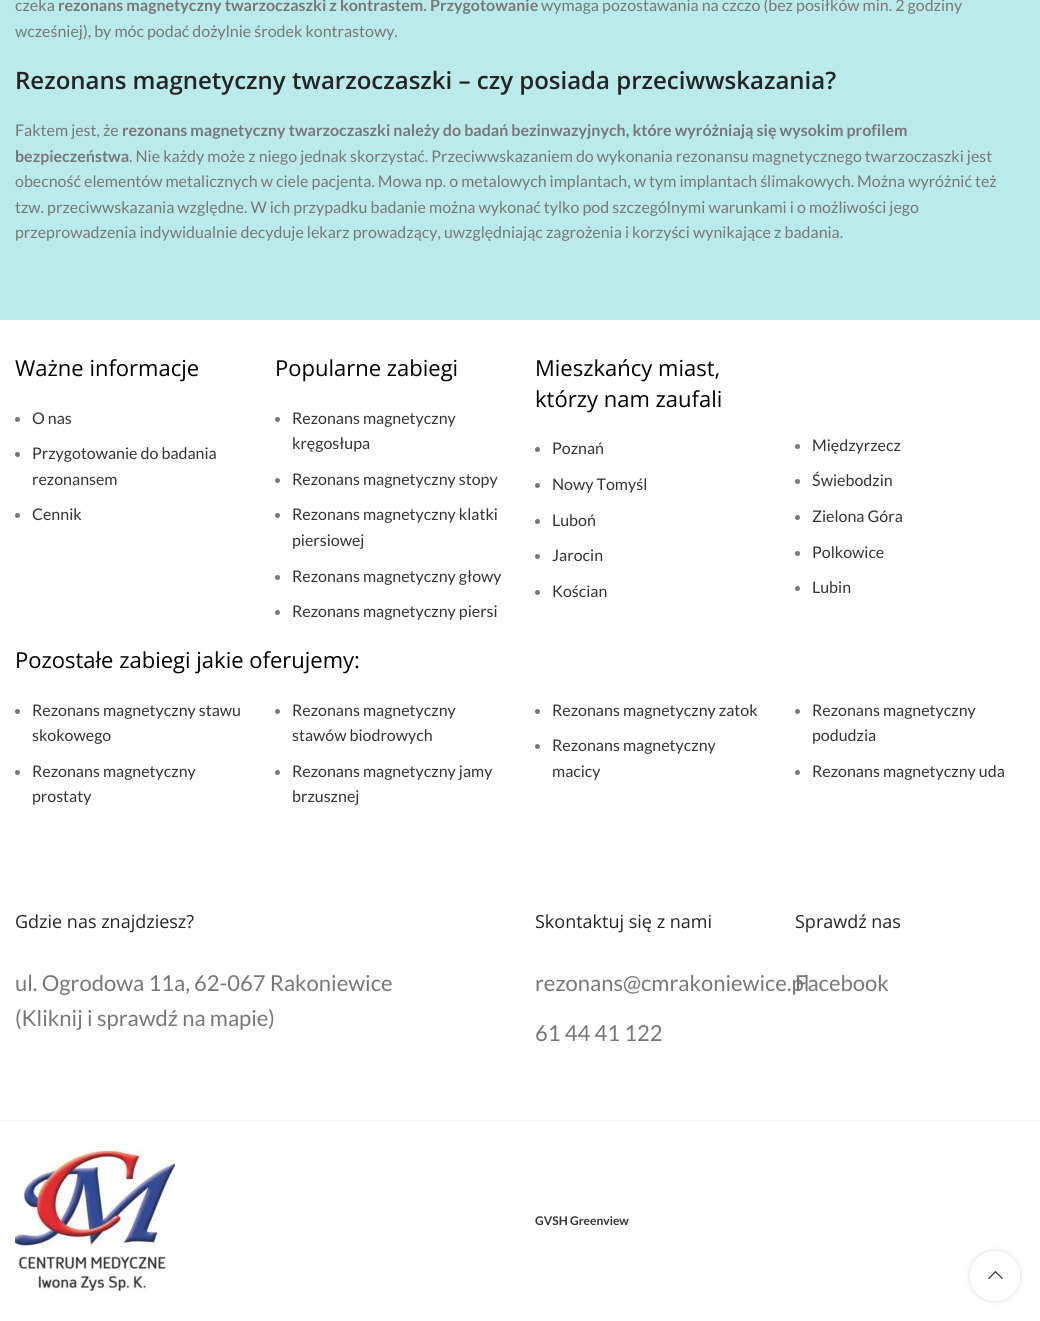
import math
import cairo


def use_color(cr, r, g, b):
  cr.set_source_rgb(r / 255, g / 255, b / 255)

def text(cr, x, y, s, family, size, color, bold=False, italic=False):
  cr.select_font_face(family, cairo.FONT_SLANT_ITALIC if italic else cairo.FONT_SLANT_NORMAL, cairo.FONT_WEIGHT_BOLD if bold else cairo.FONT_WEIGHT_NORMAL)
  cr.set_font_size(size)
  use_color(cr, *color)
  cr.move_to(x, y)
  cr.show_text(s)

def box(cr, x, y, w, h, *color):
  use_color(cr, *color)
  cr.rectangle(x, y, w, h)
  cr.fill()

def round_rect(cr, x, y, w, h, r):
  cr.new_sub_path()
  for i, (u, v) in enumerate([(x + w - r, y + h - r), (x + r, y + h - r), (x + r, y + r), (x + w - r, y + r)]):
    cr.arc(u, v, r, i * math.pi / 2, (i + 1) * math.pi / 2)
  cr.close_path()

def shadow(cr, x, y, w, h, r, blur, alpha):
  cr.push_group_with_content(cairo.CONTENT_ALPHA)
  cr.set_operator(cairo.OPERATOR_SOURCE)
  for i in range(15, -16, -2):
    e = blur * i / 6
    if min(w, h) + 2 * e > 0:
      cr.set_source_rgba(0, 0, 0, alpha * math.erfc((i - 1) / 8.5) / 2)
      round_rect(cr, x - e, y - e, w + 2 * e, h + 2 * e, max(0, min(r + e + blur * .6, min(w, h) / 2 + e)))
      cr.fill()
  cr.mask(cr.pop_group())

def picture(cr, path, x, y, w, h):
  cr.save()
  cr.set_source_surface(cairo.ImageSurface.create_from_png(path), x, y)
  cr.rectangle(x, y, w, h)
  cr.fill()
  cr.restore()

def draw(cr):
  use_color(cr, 255, 255, 255)
  cr.paint()
  box(cr, 0, 0, 1040, 320, 187, 234, 234)
  use_color(cr, 119, 119, 119)
  cr.arc(17.5, 419.5, 2.5, 0, 2 * math.pi)
  cr.fill()
  cr.arc(17.5, 454.5, 2.5, 0, 2 * math.pi)
  cr.fill()
  cr.arc(17.5, 515.5, 2.5, 0, 2 * math.pi)
  cr.fill()
  cr.arc(277.5, 419.5, 2.5, 0, 2 * math.pi)
  cr.fill()
  cr.arc(277.5, 480.5, 2.5, 0, 2 * math.pi)
  cr.fill()
  cr.arc(277.5, 515.5, 2.5, 0, 2 * math.pi)
  cr.fill()
  cr.arc(277.5, 577.5, 2.5, 0, 2 * math.pi)
  cr.fill()
  cr.arc(277.5, 612.5, 2.5, 0, 2 * math.pi)
  cr.fill()
  cr.arc(537.5, 449.5, 2.5, 0, 2 * math.pi)
  cr.fill()
  cr.arc(537.5, 485.5, 2.5, 0, 2 * math.pi)
  cr.fill()
  cr.arc(537.5, 521.5, 2.5, 0, 2 * math.pi)
  cr.fill()
  cr.arc(537.5, 556.5, 2.5, 0, 2 * math.pi)
  cr.fill()
  cr.arc(537.5, 592.5, 2.5, 0, 2 * math.pi)
  cr.fill()
  cr.arc(797.5, 446.5, 2.5, 0, 2 * math.pi)
  cr.fill()
  cr.arc(797.5, 481.5, 2.5, 0, 2 * math.pi)
  cr.fill()
  cr.arc(797.5, 517.5, 2.5, 0, 2 * math.pi)
  cr.fill()
  cr.arc(797.5, 553.5, 2.5, 0, 2 * math.pi)
  cr.fill()
  cr.arc(797.5, 588.5, 2.5, 0, 2 * math.pi)
  cr.fill()
  cr.arc(17.5, 711.5, 2.5, 0, 2 * math.pi)
  cr.fill()
  cr.arc(17.5, 772.5, 2.5, 0, 2 * math.pi)
  cr.fill()
  cr.arc(277.5, 711.5, 2.5, 0, 2 * math.pi)
  cr.fill()
  cr.arc(277.5, 772.5, 2.5, 0, 2 * math.pi)
  cr.fill()
  cr.arc(537.5, 711.5, 2.5, 0, 2 * math.pi)
  cr.fill()
  cr.arc(537.5, 746.5, 2.5, 0, 2 * math.pi)
  cr.fill()
  cr.arc(797.5, 711.5, 2.5, 0, 2 * math.pi)
  cr.fill()
  cr.arc(797.5, 772.5, 2.5, 0, 2 * math.pi)
  cr.fill()
  box(cr, 0, 1120, 1040, 1, 243, 243, 243)
  picture(cr, "img_01.png", 15, 1151, 160, 140)
  cr.save()
  cr.set_fill_rule(cairo.FILL_RULE_EVEN_ODD)
  cr.new_path()
  cr.move_to(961, 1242)
  cr.line_to(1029, 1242)
  cr.line_to(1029, 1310)
  cr.line_to(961, 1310)
  cr.close_path()
  cr.move_to(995, 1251)
  cr.curve_to(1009, 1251, 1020, 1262, 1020, 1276)
  cr.curve_to(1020, 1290, 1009, 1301, 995, 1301)
  cr.curve_to(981, 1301, 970, 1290, 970, 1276)
  cr.curve_to(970, 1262, 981, 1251, 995, 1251)
  cr.close_path()
  cr.clip()
  use_color(cr, 0, 0, 0)
  shadow(cr, 970, 1251, 50, 50, 25, 2.5, 0.17)
  cr.restore()
  cr.set_source_rgba(1, 1, 1, 0.9)
  cr.arc(995, 1276, 25, 0, 2 * math.pi)
  cr.fill()
  picture(cr, "img_02.png", 988, 1270, 15, 9)
  text(cr, 15, 11, "czeka", "Lato", 16, (119, 119, 119))
  text(cr, 58, 11, "rezonans magnetyczny twarzoczaszki z kontrastem. Przygotowanie", "Lato", 16, (119, 119, 119), bold=True)
  text(cr, 541, 11, "wymaga pozostawania na czczo (bez posiłków min. 2 godziny", "Lato", 16, (119, 119, 119))
  text(cr, 15, 37, "wcześniej), by móc podać dożylnie środek kontrastowy.", "Lato", 16, (119, 119, 119))
  text(cr, 15, 89, "Rezonans magnetyczny twarzoczaszki – czy posiada przeciwwskazania?", "Open Sans SemiBold", 24, (36, 36, 36))
  text(cr, 15, 136, "Faktem jest, że", "Lato", 16, (119, 119, 119))
  text(cr, 122, 136, "rezonans magnetyczny twarzoczaszki należy do badań bezinwazyjnych, które wyróżniają się wysokim profilem", "Lato", 16, (119, 119, 119), bold=True)
  text(cr, 15, 162, "bezpieczeństwa", "Lato", 16, (119, 119, 119), bold=True)
  text(cr, 129, 162, ". Nie każdy może z niego jednak skorzystać. Przeciwwskazaniem do wykonania rezonansu magnetycznego twarzoczaszki jest", "Lato", 16, (119, 119, 119))
  text(cr, 15, 187, "obecność elementów metalicznych w ciele pacjenta. Mowa np. o metalowych implantach, w tym implantach ślimakowych. Można wyróżnić też", "Lato", 16, (119, 119, 119))
  text(cr, 15, 213, "tzw. przeciwwskazania względne. W ich przypadku badanie można wykonać tylko pod szczególnymi warunkami i o możliwości jego", "Lato", 16, (119, 119, 119))
  text(cr, 15, 238, "przeprowadzenia indywidualnie decyduje lekarz prowadzący, uwzględniając zagrożenia i korzyści wynikające z badania.", "Lato", 16, (119, 119, 119))
  text(cr, 15, 376, "Ważne informacje", "Open Sans", 22, (0, 0, 0))
  text(cr, 32, 424, "O nas", "Lato", 16, (51, 51, 51))
  text(cr, 32, 459, "Przygotowanie do badania", "Lato", 16, (51, 51, 51))
  text(cr, 32, 485, "rezonansem", "Lato", 16, (51, 51, 51))
  text(cr, 32, 520, "Cennik", "Lato", 16, (51, 51, 51))
  text(cr, 275, 376, "Popularne zabiegi", "Open Sans", 22, (0, 0, 0))
  text(cr, 292, 424, "Rezonans magnetyczny", "Lato", 16, (51, 51, 51))
  text(cr, 292, 449, "kręgosłupa", "Lato", 16, (51, 51, 51))
  text(cr, 292, 485, "Rezonans magnetyczny stopy", "Lato", 16, (51, 51, 51))
  text(cr, 292, 520, "Rezonans magnetyczny klatki", "Lato", 16, (51, 51, 51))
  text(cr, 292, 546, "piersiowej", "Lato", 16, (51, 51, 51))
  text(cr, 292, 582, "Rezonans magnetyczny głowy", "Lato", 16, (51, 51, 51))
  text(cr, 292, 617, "Rezonans magnetyczny piersi", "Lato", 16, (51, 51, 51))
  text(cr, 535, 376, "Mieszkańcy miast,", "Open Sans", 22, (0, 0, 0))
  text(cr, 535, 407, "którzy nam zaufali", "Open Sans", 22, (0, 0, 0))
  text(cr, 552, 454, "Poznań", "Lato", 16, (51, 51, 51))
  text(cr, 552, 490, "Nowy Tomyśl", "Lato", 16, (51, 51, 51))
  text(cr, 552, 526, "Luboń", "Lato", 16, (51, 51, 51))
  text(cr, 552, 561, "Jarocin", "Lato", 16, (51, 51, 51))
  text(cr, 552, 597, "Kościan", "Lato", 16, (51, 51, 51))
  text(cr, 812, 451, "Międzyrzecz", "Lato", 16, (51, 51, 51))
  text(cr, 812, 486, "Świebodzin", "Lato", 16, (51, 51, 51))
  text(cr, 812, 522, "Zielona Góra", "Lato", 16, (51, 51, 51))
  text(cr, 812, 558, "Polkowice", "Lato", 16, (51, 51, 51))
  text(cr, 812, 593, "Lubin", "Lato", 16, (51, 51, 51))
  text(cr, 15, 668, "Pozostałe zabiegi jakie oferujemy:", "Open Sans", 22, (0, 0, 0))
  text(cr, 32, 716, "Rezonans magnetyczny stawu", "Lato", 16, (51, 51, 51))
  text(cr, 32, 741, "skokowego", "Lato", 16, (51, 51, 51))
  text(cr, 32, 777, "Rezonans magnetyczny", "Lato", 16, (51, 51, 51))
  text(cr, 32, 802, "prostaty", "Lato", 16, (51, 51, 51))
  text(cr, 292, 716, "Rezonans magnetyczny", "Lato", 16, (51, 51, 51))
  text(cr, 292, 741, "stawów biodrowych", "Lato", 16, (51, 51, 51))
  text(cr, 292, 777, "Rezonans magnetyczny jamy", "Lato", 16, (51, 51, 51))
  text(cr, 292, 802, "brzusznej", "Lato", 16, (51, 51, 51))
  text(cr, 552, 716, "Rezonans magnetyczny zatok", "Lato", 16, (51, 51, 51))
  text(cr, 552, 751, "Rezonans magnetyczny", "Lato", 16, (51, 51, 51))
  text(cr, 552, 777, "macicy", "Lato", 16, (51, 51, 51))
  text(cr, 812, 716, "Rezonans magnetyczny", "Lato", 16, (51, 51, 51))
  text(cr, 812, 741, "podudzia", "Lato", 16, (51, 51, 51))
  text(cr, 812, 777, "Rezonans magnetyczny uda", "Lato", 16, (51, 51, 51))
  text(cr, 15, 928, "Gdzie nas znajdziesz?", "Open Sans", 18, (36, 36, 36))
  text(cr, 15, 991, "ul. Ogrodowa 11a, 62-067 Rakoniewice", "Lato", 22, (119, 119, 119))
  text(cr, 15, 1026, "(Kliknij i sprawdź na mapie)", "Lato", 22, (119, 119, 119))
  text(cr, 535, 928, "Skontaktuj się z nami", "Open Sans", 18, (36, 36, 36))
  text(cr, 535, 991, "rezonans@cmrakoniewice.pl", "Lato", 22, (119, 119, 119))
  text(cr, 535, 1041, "61 44 41 122", "Lato", 22, (119, 119, 119))
  text(cr, 795, 928, "Sprawdź nas", "Open Sans", 18, (36, 36, 36))
  text(cr, 795, 991, "Facebook", "Lato", 22, (119, 119, 119))
  text(cr, 535, 1225, "GVSH Greenview", "Lato", 12, (51, 51, 51), bold=True)


surface = cairo.ImageSurface(cairo.FORMAT_RGB24, 1040, 1321)
cr = cairo.Context(surface)
options = cairo.FontOptions()
options.set_hint_metrics(cairo.HINT_METRICS_OFF)
options.set_hint_style(cairo.HINT_STYLE_NONE)
cr.set_font_options(options)
cr.set_miter_limit(4)
draw(cr)
surface.write_to_png("out.png")
